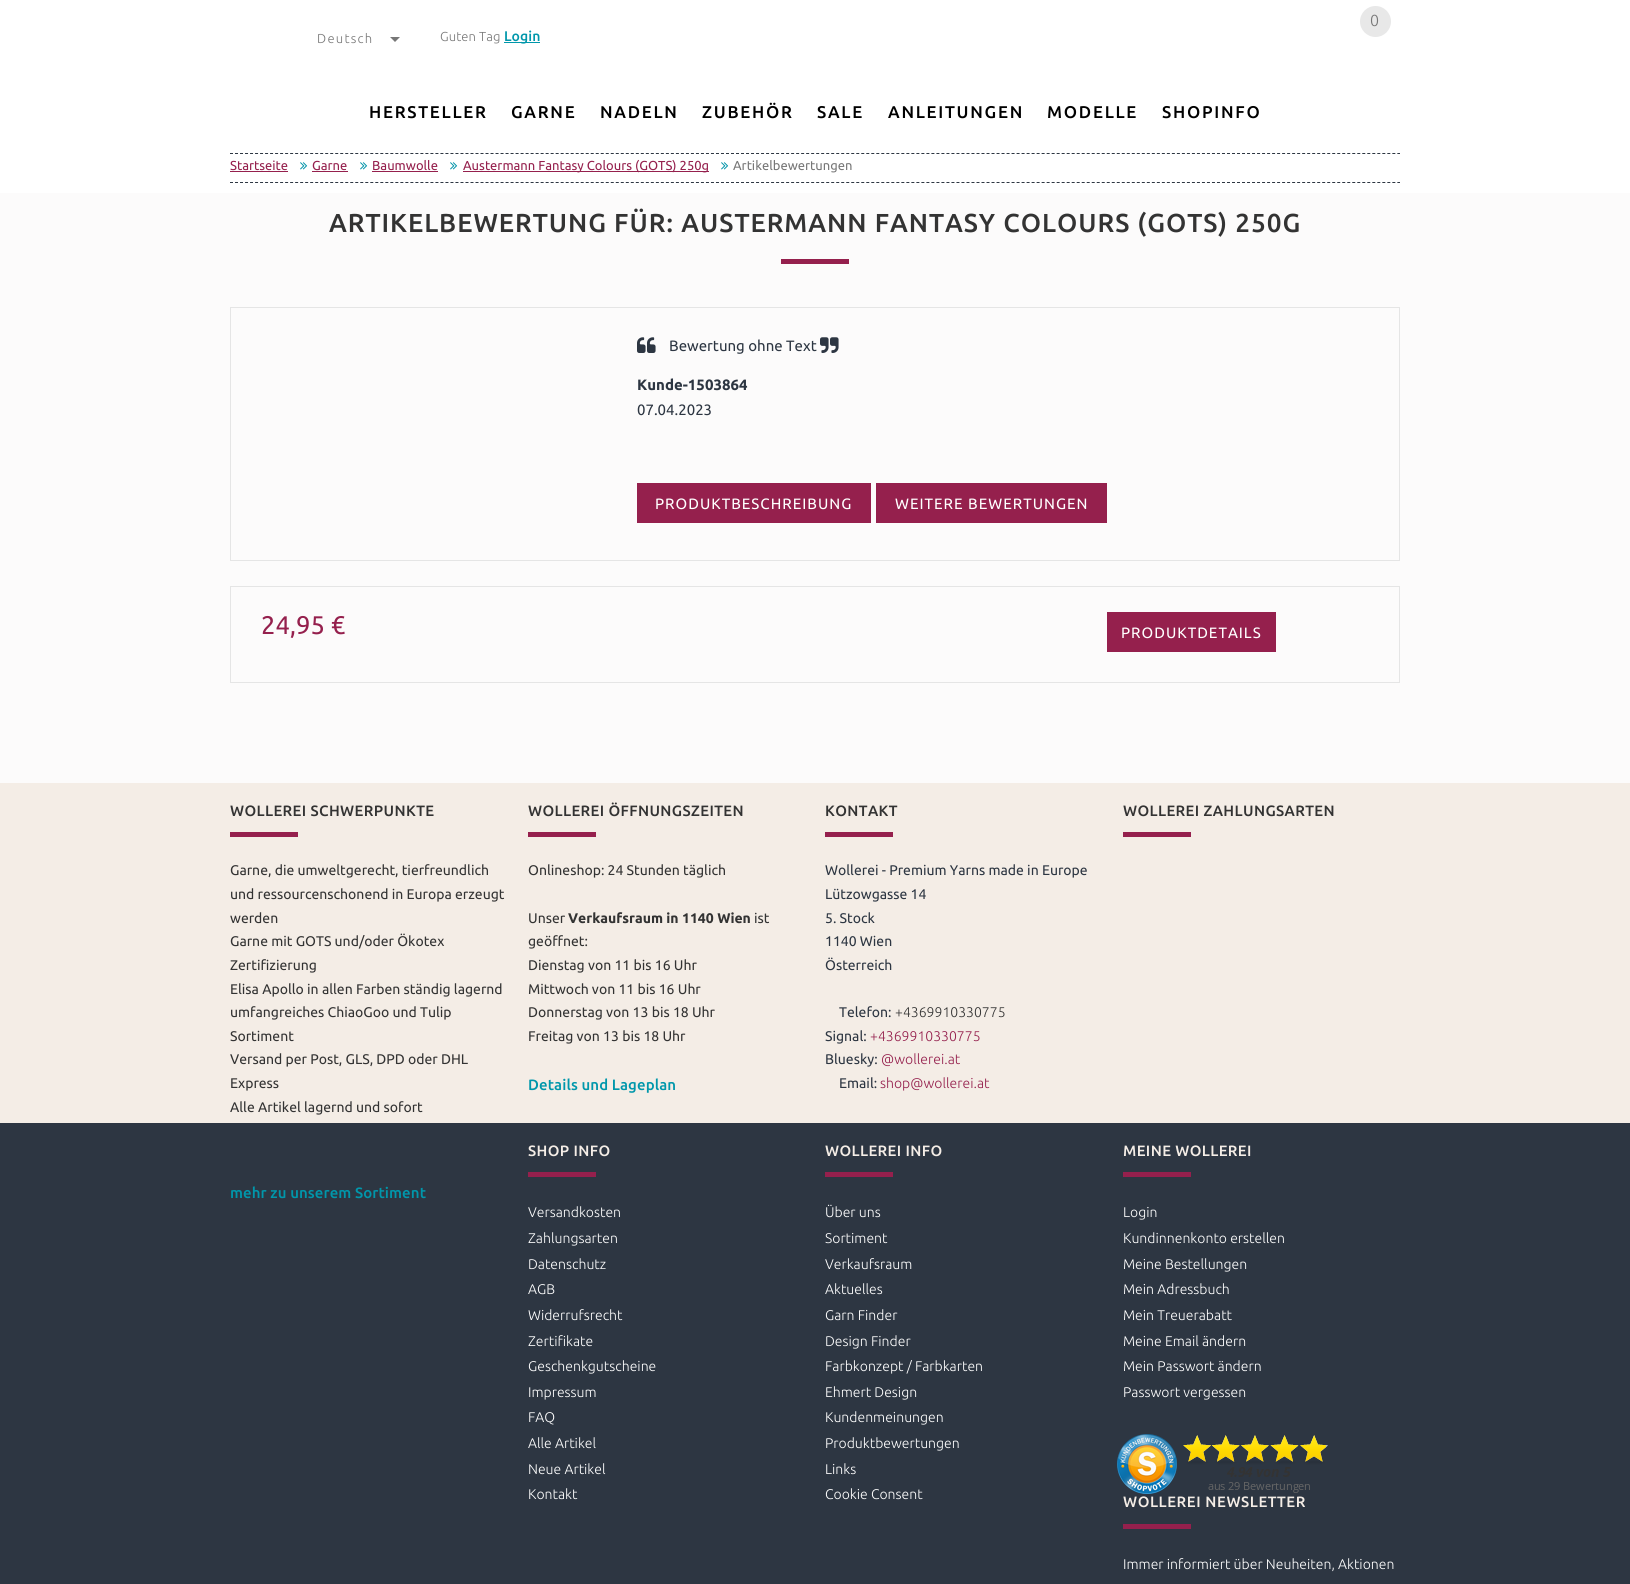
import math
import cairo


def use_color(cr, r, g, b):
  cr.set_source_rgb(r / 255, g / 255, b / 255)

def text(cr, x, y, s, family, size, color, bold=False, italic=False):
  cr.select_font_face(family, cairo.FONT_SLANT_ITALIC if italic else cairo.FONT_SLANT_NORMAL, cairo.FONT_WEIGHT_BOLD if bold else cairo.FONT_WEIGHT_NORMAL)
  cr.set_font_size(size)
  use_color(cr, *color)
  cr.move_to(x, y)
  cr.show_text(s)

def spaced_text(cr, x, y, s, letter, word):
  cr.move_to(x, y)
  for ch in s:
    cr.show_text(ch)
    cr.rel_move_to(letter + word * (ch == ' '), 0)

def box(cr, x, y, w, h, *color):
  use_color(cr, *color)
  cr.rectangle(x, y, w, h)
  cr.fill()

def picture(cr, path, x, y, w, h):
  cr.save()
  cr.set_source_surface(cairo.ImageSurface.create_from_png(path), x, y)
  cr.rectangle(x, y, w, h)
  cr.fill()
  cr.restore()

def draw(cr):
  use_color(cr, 252, 251, 251)
  cr.paint()
  box(cr, 0, 0, 1630, 193, 255, 255, 255)
  use_color(cr, 232, 232, 232)
  cr.arc(1375.5, 21.5, 15.5, 0, 2 * math.pi)
  cr.fill()
  use_color(cr, 119, 119, 119)
  cr.new_path()
  cr.move_to(390, 37)
  cr.line_to(400, 37)
  cr.line_to(395, 42)
  cr.close_path()
  cr.fill()
  box(cr, 504, 42, 36, 1, 0, 151, 171)
  cr.new_path()
  cr.move_to(230, 153.5)
  cr.line_to(1400, 153.5)
  use_color(cr, 45, 54, 66)
  cr.set_line_width(1)
  cr.set_dash([3, 2.01])
  cr.stroke()
  cr.new_path()
  cr.move_to(230, 182.5)
  cr.line_to(1400, 182.5)
  cr.stroke()
  box(cr, 230, 171, 58, 1, 149, 32, 77)
  picture(cr, "img_01.png", 300, 162, 8, 8)
  box(cr, 312, 171, 36, 1, 149, 32, 77)
  picture(cr, "img_01.png", 360, 162, 8, 8)
  box(cr, 372, 171, 66, 1, 149, 32, 77)
  picture(cr, "img_01.png", 450, 162, 8, 8)
  box(cr, 463, 171, 246, 1, 149, 32, 77)
  picture(cr, "img_01.png", 721, 162, 8, 8)
  box(cr, 781, 259, 68, 5, 149, 32, 77)
  cr.rectangle(230.5, 307.5, 1169, 253)
  use_color(cr, 229, 229, 229)
  cr.set_dash([])
  cr.stroke()
  picture(cr, "img_02.png", 637, 337, 19, 16)
  picture(cr, "img_03.png", 820, 337, 19, 16)
  box(cr, 637, 483, 234, 40, 149, 32, 77)
  box(cr, 876, 483, 231, 40, 149, 32, 77)
  cr.rectangle(230.5, 586.5, 1169, 96)
  use_color(cr, 229, 229, 229)
  cr.stroke()
  box(cr, 1107, 612, 169, 40, 149, 32, 77)
  box(cr, 0, 783, 1630, 340, 244, 237, 230)
  box(cr, 230, 832, 68, 5, 149, 32, 77)
  box(cr, 528, 832, 68, 5, 149, 32, 77)
  box(cr, 825, 832, 68, 5, 149, 32, 77)
  box(cr, 1123, 832, 68, 5, 149, 32, 77)
  box(cr, 0, 1123, 1630, 461, 45, 54, 66)
  box(cr, 528, 1172, 68, 5, 149, 32, 77)
  box(cr, 825, 1172, 68, 5, 149, 32, 77)
  box(cr, 1123, 1172, 68, 5, 149, 32, 77)
  picture(cr, "img_04.png", 1117, 1434, 211, 60)
  box(cr, 1123, 1524, 68, 5, 149, 32, 77)
  cr.select_font_face("Ubuntu Light")
  cr.set_font_size(16)
  use_color(cr, 119, 119, 119)
  spaced_text(cr, 1370, 26, "0", 2, 0)
  cr.set_font_size(13)
  spaced_text(cr, 317, 43, "Deutsch", 1.25, 0)
  spaced_text(cr, 440, 41, "Guten Tag", 0.1, 0)
  cr.select_font_face("Ubuntu Medium")
  cr.set_font_size(14)
  use_color(cr, 0, 151, 171)
  spaced_text(cr, 504, 41, "Login", 0.1, 0)
  cr.set_font_size(17)
  use_color(cr, 0, 0, 0)
  spaced_text(cr, 369, 118, "HERSTELLER", 1.75, 0)
  spaced_text(cr, 511, 118, "GARNE", 1.75, 0)
  spaced_text(cr, 600, 118, "NADELN", 1.75, 0)
  spaced_text(cr, 702, 118, "ZUBEHÖR", 1.75, 0)
  spaced_text(cr, 817, 118, "SALE", 1.75, 0)
  spaced_text(cr, 888, 118, "ANLEITUNGEN", 1.75, 0)
  spaced_text(cr, 1047, 118, "MODELLE", 1.75, 0)
  spaced_text(cr, 1162, 118, "SHOPINFO", 1.75, 0)
  text(cr, 230, 170, "Startseite", "Ubuntu", 13, (149, 32, 77))
  text(cr, 312, 170, "Garne", "Ubuntu", 13, (149, 32, 77))
  text(cr, 372, 170, "Baumwolle", "Ubuntu", 13, (149, 32, 77))
  text(cr, 463, 170, "Austermann Fantasy Colours (GOTS) 250g", "Ubuntu", 13, (149, 32, 77))
  text(cr, 733, 170, "Artikelbewertungen", "Ubuntu", 13, (119, 119, 119))
  cr.select_font_face("Ubuntu Medium")
  cr.set_font_size(26)
  use_color(cr, 51, 51, 51)
  spaced_text(cr, 329, 232, "ARTIKELBEWERTUNG FÜR: AUSTERMANN FANTASY COLOURS (GOTS) 250G", 1, 0)
  text(cr, 669, 351, "Bewertung ohne Text", "Ubuntu", 15, (45, 54, 66))
  text(cr, 637, 390, "Kunde-1503864", "Ubuntu", 15, (45, 54, 66), bold=True)
  text(cr, 637, 415, "07.04.2023", "Ubuntu", 15, (45, 54, 66))
  use_color(cr, 255, 255, 255)
  spaced_text(cr, 655, 509, "PRODUKTBESCHREIBUNG", 1, 0)
  spaced_text(cr, 895, 509, "WEITERE BEWERTUNGEN", 1, 0)
  text(cr, 261, 634, "24,95 €", "Ubuntu", 25.5, (149, 32, 77))
  cr.set_font_size(15)
  use_color(cr, 255, 255, 255)
  spaced_text(cr, 1121, 638, "PRODUKTDETAILS", 1, 0)
  cr.select_font_face("Ubuntu Medium")
  use_color(cr, 51, 51, 51)
  spaced_text(cr, 230, 816, "WOLLEREI SCHWERPUNKTE", 0.4, 0)
  text(cr, 230, 875, "Garne, die umweltgerecht, tierfreundlich", "Ubuntu", 14, (51, 51, 51))
  text(cr, 230, 899, "und ressourcenschonend in Europa erzeugt", "Ubuntu", 14, (51, 51, 51))
  text(cr, 230, 923, "werden", "Ubuntu", 14, (51, 51, 51))
  text(cr, 230, 946, "Garne mit GOTS und/oder Ökotex", "Ubuntu", 14, (51, 51, 51))
  text(cr, 230, 970, "Zertifizierung", "Ubuntu", 14, (51, 51, 51))
  text(cr, 230, 994, "Elisa Apollo in allen Farben ständig lagernd", "Ubuntu", 14, (51, 51, 51))
  text(cr, 230, 1017, "umfangreiches ChiaoGoo und Tulip", "Ubuntu", 14, (51, 51, 51))
  text(cr, 230, 1041, "Sortiment", "Ubuntu", 14, (51, 51, 51))
  text(cr, 230, 1064, "Versand per Post, GLS, DPD oder DHL", "Ubuntu", 14, (51, 51, 51))
  text(cr, 230, 1088, "Express", "Ubuntu", 14, (51, 51, 51))
  text(cr, 230, 1112, "Alle Artikel lagernd und sofort", "Ubuntu", 14, (51, 51, 51))
  cr.select_font_face("Ubuntu Medium")
  cr.set_font_size(15)
  use_color(cr, 0, 151, 171)
  spaced_text(cr, 230, 1198, "mehr zu unserem Sortiment", 0.1, 0)
  use_color(cr, 51, 51, 51)
  spaced_text(cr, 528, 816, "WOLLEREI ÖFFNUNGSZEITEN", 0.4, 0)
  text(cr, 528, 875, "Onlineshop: 24 Stunden täglich", "Ubuntu", 14, (51, 51, 51))
  text(cr, 528, 923, "Unser", "Ubuntu", 14, (51, 51, 51))
  text(cr, 568, 923, "Verkaufsraum in 1140 Wien", "Ubuntu", 14, (51, 51, 51), bold=True)
  text(cr, 754, 923, "ist", "Ubuntu", 14, (51, 51, 51))
  text(cr, 528, 946, "geöffnet:", "Ubuntu", 14, (51, 51, 51))
  text(cr, 528, 970, "Dienstag von 11 bis 16 Uhr", "Ubuntu", 14, (51, 51, 51))
  text(cr, 528, 994, "Mittwoch von 11 bis 16 Uhr", "Ubuntu", 14, (51, 51, 51))
  text(cr, 528, 1017, "Donnerstag von 13 bis 18 Uhr", "Ubuntu", 14, (51, 51, 51))
  text(cr, 528, 1041, "Freitag von 13 bis 18 Uhr", "Ubuntu", 14, (51, 51, 51))
  cr.select_font_face("Ubuntu Medium")
  cr.set_font_size(15)
  use_color(cr, 0, 151, 171)
  spaced_text(cr, 528, 1090, "Details und Lageplan", 0.1, 0)
  use_color(cr, 51, 51, 51)
  spaced_text(cr, 825, 816, "KONTAKT", 0.4, 0)
  text(cr, 825, 875, "Wollerei - Premium Yarns made in Europe", "Ubuntu", 14, (45, 54, 66))
  text(cr, 825, 899, "Lützowgasse 14", "Ubuntu", 14, (45, 54, 66))
  text(cr, 825, 923, "5. Stock", "Ubuntu", 14, (45, 54, 66))
  text(cr, 825, 946, "1140 Wien", "Ubuntu", 14, (45, 54, 66))
  text(cr, 825, 970, "Österreich", "Ubuntu", 14, (45, 54, 66))
  text(cr, 839, 1017, "Telefon:", "Ubuntu", 14, (45, 54, 66))
  text(cr, 895, 1017, "+4369910330775", "Ubuntu Light", 14, (51, 51, 51))
  text(cr, 825, 1041, "Signal:", "Ubuntu", 14, (45, 54, 66))
  text(cr, 870, 1041, "+4369910330775", "Ubuntu Light", 14, (149, 32, 77))
  text(cr, 825, 1064, "Bluesky:", "Ubuntu", 14, (45, 54, 66))
  text(cr, 881, 1064, "@wollerei.at", "Ubuntu Light", 14, (149, 32, 77))
  text(cr, 839, 1088, "Email:", "Ubuntu", 14, (45, 54, 66))
  text(cr, 880, 1088, "shop@wollerei.at", "Ubuntu Light", 14, (149, 32, 77))
  cr.select_font_face("Ubuntu Medium")
  cr.set_font_size(15)
  use_color(cr, 51, 51, 51)
  spaced_text(cr, 1123, 816, "WOLLEREI ZAHLUNGSARTEN", 0.4, 0)
  use_color(cr, 244, 237, 230)
  spaced_text(cr, 528, 1156, "SHOP INFO", 0.4, 0)
  text(cr, 528, 1217, "Versandkosten", "Ubuntu Light", 14, (255, 255, 255))
  text(cr, 528, 1243, "Zahlungsarten", "Ubuntu Light", 14, (255, 255, 255))
  text(cr, 528, 1269, "Datenschutz", "Ubuntu Light", 14, (255, 255, 255))
  text(cr, 528, 1294, "AGB", "Ubuntu Light", 14, (255, 255, 255))
  text(cr, 528, 1320, "Widerrufsrecht", "Ubuntu Light", 14, (255, 255, 255))
  text(cr, 528, 1346, "Zertifikate", "Ubuntu Light", 14, (255, 255, 255))
  text(cr, 528, 1371, "Geschenkgutscheine", "Ubuntu Light", 14, (255, 255, 255))
  text(cr, 528, 1397, "Impressum", "Ubuntu Light", 14, (255, 255, 255))
  text(cr, 528, 1422, "FAQ", "Ubuntu Light", 14, (255, 255, 255))
  text(cr, 528, 1448, "Alle Artikel", "Ubuntu Light", 14, (255, 255, 255))
  text(cr, 528, 1474, "Neue Artikel", "Ubuntu Light", 14, (255, 255, 255))
  text(cr, 528, 1499, "Kontakt", "Ubuntu Light", 14, (255, 255, 255))
  cr.select_font_face("Ubuntu Medium")
  cr.set_font_size(15)
  use_color(cr, 244, 237, 230)
  spaced_text(cr, 825, 1156, "WOLLEREI INFO", 0.4, 0)
  text(cr, 825, 1217, "Über uns", "Ubuntu Light", 14, (255, 255, 255))
  text(cr, 825, 1243, "Sortiment", "Ubuntu Light", 14, (255, 255, 255))
  text(cr, 825, 1269, "Verkaufsraum", "Ubuntu Light", 14, (255, 255, 255))
  text(cr, 825, 1294, "Aktuelles", "Ubuntu Light", 14, (255, 255, 255))
  text(cr, 825, 1320, "Garn Finder", "Ubuntu Light", 14, (255, 255, 255))
  text(cr, 825, 1346, "Design Finder", "Ubuntu Light", 14, (255, 255, 255))
  text(cr, 825, 1371, "Farbkonzept / Farbkarten", "Ubuntu Light", 14, (255, 255, 255))
  text(cr, 825, 1397, "Ehmert Design", "Ubuntu Light", 14, (255, 255, 255))
  text(cr, 825, 1422, "Kundenmeinungen", "Ubuntu Light", 14, (255, 255, 255))
  text(cr, 825, 1448, "Produktbewertungen", "Ubuntu Light", 14, (255, 255, 255))
  text(cr, 825, 1474, "Links", "Ubuntu Light", 14, (255, 255, 255))
  text(cr, 825, 1499, "Cookie Consent", "Ubuntu Light", 14, (255, 255, 255))
  cr.select_font_face("Ubuntu Medium")
  cr.set_font_size(15)
  use_color(cr, 244, 237, 230)
  spaced_text(cr, 1123, 1156, "MEINE WOLLEREI", 0.4, 0)
  text(cr, 1123, 1217, "Login", "Ubuntu Light", 14, (255, 255, 255))
  text(cr, 1123, 1243, "Kundinnenkonto erstellen", "Ubuntu Light", 14, (255, 255, 255))
  text(cr, 1123, 1269, "Meine Bestellungen", "Ubuntu Light", 14, (255, 255, 255))
  text(cr, 1123, 1294, "Mein Adressbuch", "Ubuntu Light", 14, (255, 255, 255))
  text(cr, 1123, 1320, "Mein Treuerabatt", "Ubuntu Light", 14, (255, 255, 255))
  text(cr, 1123, 1346, "Meine Email ändern", "Ubuntu Light", 14, (255, 255, 255))
  text(cr, 1123, 1371, "Mein Passwort ändern", "Ubuntu Light", 14, (255, 255, 255))
  text(cr, 1123, 1397, "Passwort vergessen", "Ubuntu Light", 14, (255, 255, 255))
  cr.select_font_face("Ubuntu Medium")
  cr.set_font_size(15)
  use_color(cr, 244, 237, 230)
  spaced_text(cr, 1123, 1507, "WOLLEREI NEWSLETTER", 0.6, 0)
  text(cr, 1123, 1569, "Immer informiert über Neuheiten, Aktionen", "Ubuntu Light", 14, (255, 255, 255))


surface = cairo.ImageSurface(cairo.FORMAT_RGB24, 1630, 1584)
cr = cairo.Context(surface)
options = cairo.FontOptions()
options.set_hint_metrics(cairo.HINT_METRICS_OFF)
options.set_hint_style(cairo.HINT_STYLE_NONE)
cr.set_font_options(options)
cr.set_miter_limit(4)
draw(cr)
surface.write_to_png("out.png")
